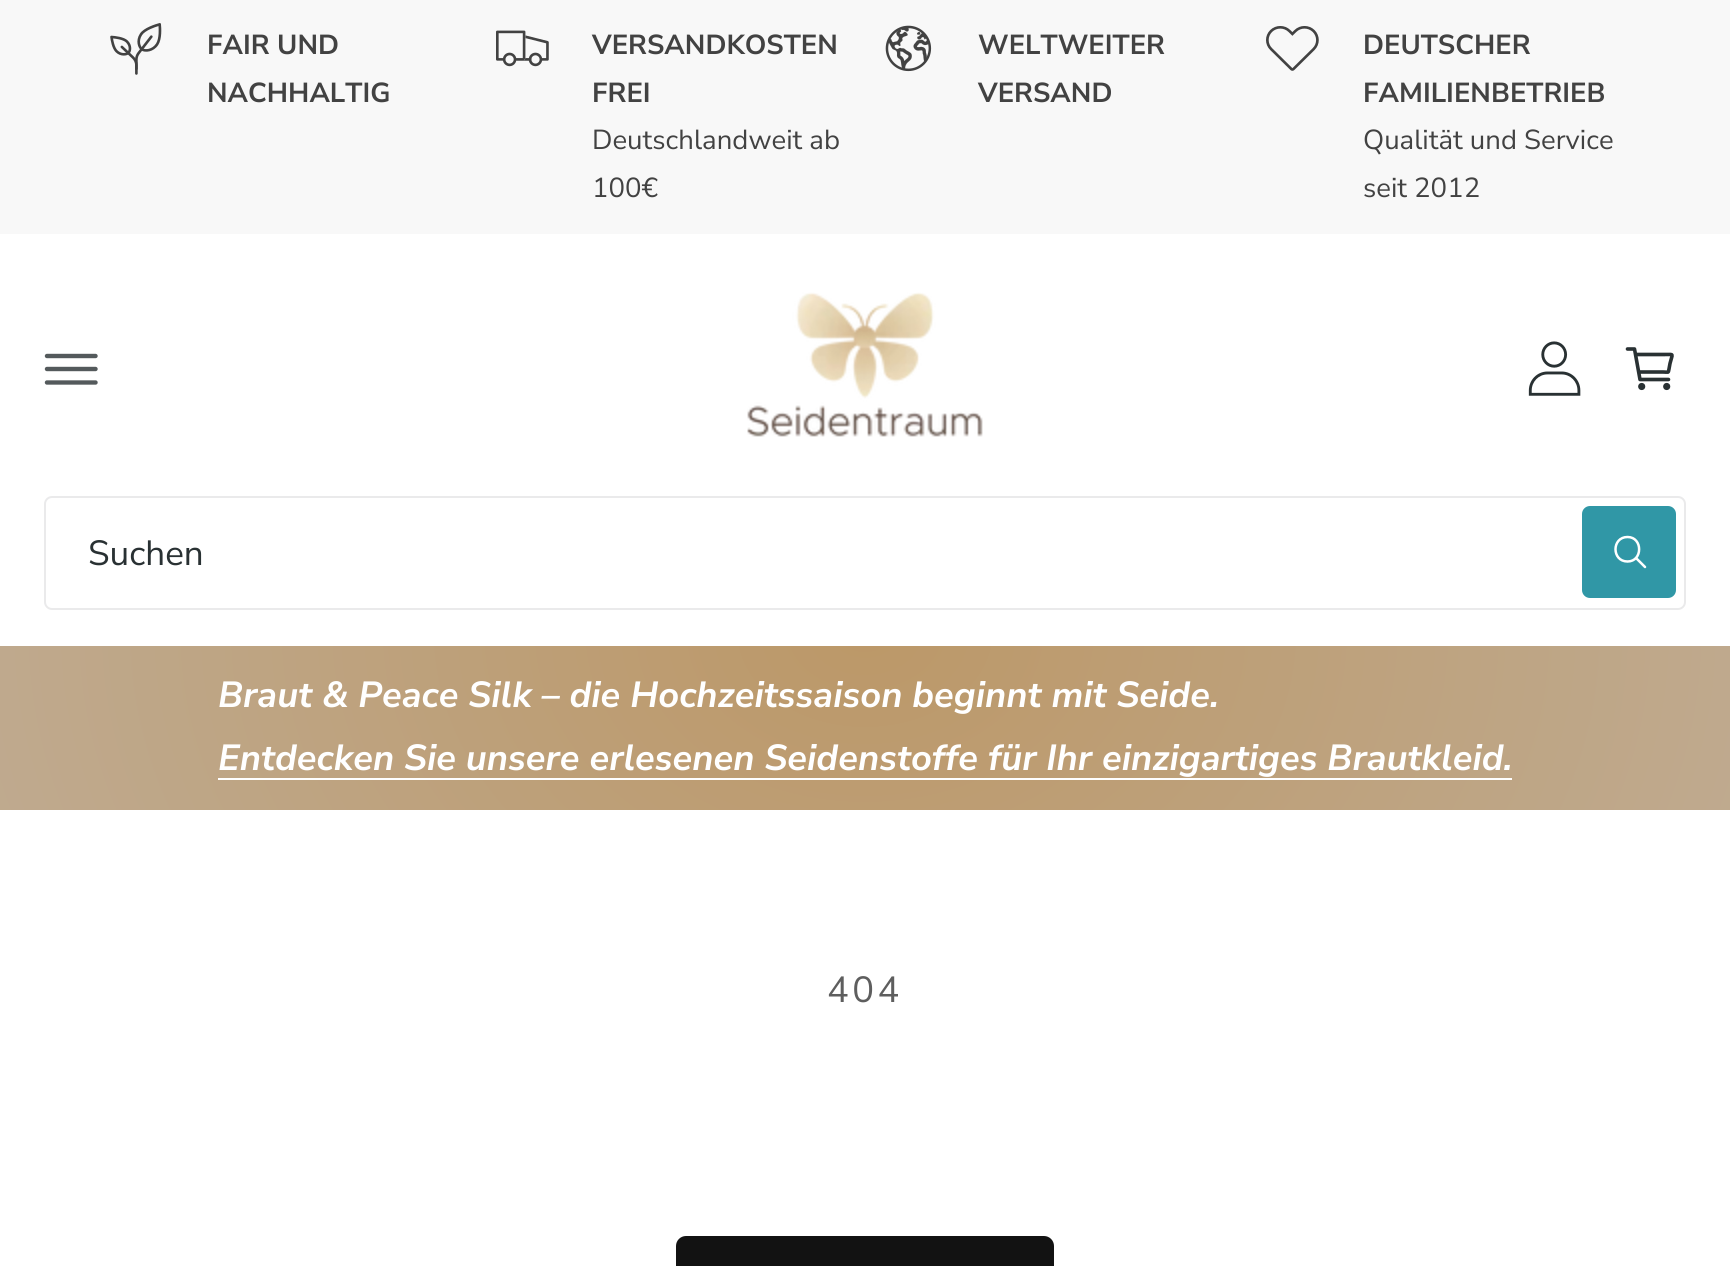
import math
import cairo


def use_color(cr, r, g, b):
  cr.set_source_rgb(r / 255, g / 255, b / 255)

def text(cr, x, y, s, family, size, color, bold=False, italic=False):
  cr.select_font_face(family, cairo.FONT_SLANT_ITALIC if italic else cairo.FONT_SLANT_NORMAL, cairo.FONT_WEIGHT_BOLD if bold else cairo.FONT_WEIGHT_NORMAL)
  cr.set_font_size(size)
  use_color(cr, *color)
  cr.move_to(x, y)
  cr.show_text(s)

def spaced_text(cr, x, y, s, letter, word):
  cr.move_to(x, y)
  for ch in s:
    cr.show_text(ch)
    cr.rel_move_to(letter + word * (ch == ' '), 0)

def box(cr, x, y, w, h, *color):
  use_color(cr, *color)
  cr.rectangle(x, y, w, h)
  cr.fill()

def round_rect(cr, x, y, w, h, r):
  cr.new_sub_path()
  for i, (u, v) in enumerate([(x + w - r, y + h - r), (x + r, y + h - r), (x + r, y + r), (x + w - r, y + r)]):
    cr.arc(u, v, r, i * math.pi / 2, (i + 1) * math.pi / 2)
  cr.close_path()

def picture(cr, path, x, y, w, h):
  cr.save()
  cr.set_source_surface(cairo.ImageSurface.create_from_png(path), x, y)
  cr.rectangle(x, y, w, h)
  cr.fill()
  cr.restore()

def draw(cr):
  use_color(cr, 255, 255, 255)
  cr.paint()
  box(cr, 0, 0, 1730, 234, 248, 248, 248)
  picture(cr, "img_01.png", 110, 23, 52, 52)
  picture(cr, "img_02.png", 496, 30, 53, 37)
  picture(cr, "img_03.png", 885, 25, 47, 47)
  picture(cr, "img_04.png", 1266, 26, 53, 45)
  cr.new_path()
  cr.move_to(47, 356)
  cr.line_to(95.5, 356)
  cr.move_to(47, 369)
  cr.line_to(95.5, 369)
  cr.move_to(47, 382.5)
  cr.line_to(95.5, 382.5)
  use_color(cr, 84, 90, 92)
  cr.set_line_width(4.4)
  cr.set_line_cap(cairo.LINE_CAP_ROUND)
  cr.stroke()
  picture(cr, "img_05.png", 747, 292, 236, 145)
  picture(cr, "img_06.png", 1528, 341, 53, 55)
  cr.arc(1641.7, 386.5, 1.8, 0, 2 * math.pi)
  use_color(cr, 41, 49, 51)
  cr.set_line_width(3.6)
  cr.set_line_cap(cairo.LINE_CAP_BUTT)
  cr.stroke()
  cr.arc(1666.7, 386.5, 1.8, 0, 2 * math.pi)
  cr.stroke()
  cr.new_path()
  cr.move_to(1627.5, 349)
  cr.line_to(1634.5, 349)
  cr.line_to(1640, 379.5)
  cr.line_to(1668.5, 379.5)
  cr.move_to(1640, 372)
  cr.line_to(1663, 372)
  cr.curve_to(1669, 372, 1668, 373.5, 1669, 369)
  cr.line_to(1670, 363.5)
  cr.curve_to(1672.5, 353, 1674.5, 354.5, 1665, 354.5)
  cr.line_to(1636.5, 354.5)
  cr.set_line_cap(cairo.LINE_CAP_ROUND)
  cr.set_line_join(cairo.LINE_JOIN_ROUND)
  cr.stroke()
  use_color(cr, 48, 151, 166)
  round_rect(cr, 1582, 506, 94, 92, 8)
  cr.fill()
  cr.new_path()
  cr.move_to(1627.5, 537)
  cr.curve_to(1611.5, 537, 1611.5, 561.5, 1627.5, 561.5)
  cr.curve_to(1643, 561.5, 1643, 537, 1627.5, 537)
  cr.close_path()
  use_color(cr, 255, 255, 255)
  cr.set_line_width(2.5)
  cr.set_line_cap(cairo.LINE_CAP_BUTT)
  cr.set_line_join(cairo.LINE_JOIN_MITER)
  cr.stroke()
  cr.new_path()
  cr.move_to(1636.5, 558.5)
  cr.line_to(1645, 567)
  cr.set_line_cap(cairo.LINE_CAP_ROUND)
  cr.stroke()
  round_rect(cr, 45, 497, 1640, 112, 7)
  use_color(cr, 234, 234, 235)
  cr.set_line_width(2)
  cr.set_line_cap(cairo.LINE_CAP_BUTT)
  cr.stroke()
  gradient = cairo.RadialGradient(0, 0, 0, 0, 0, 1)
  gradient.set_matrix(cairo.Matrix(1 / 1223, 0, 0, 1 / 895, -1 * 865 / 1223, -1 * 633 / 895))
  gradient.add_color_stop_rgba(0, 0.737, 0.596, 0.408, 1)
  gradient.add_color_stop_rgba(1, 0.753, 0.69, 0.612, 1)
  cr.set_source(gradient)
  cr.rectangle(0, 646, 1730, 164)
  cr.fill()
  box(cr, 218, 778, 1294, 2, 255, 255, 255)
  use_color(cr, 18, 18, 18)
  round_rect(cr, 677, 1237, 376, 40, 9)
  cr.fill_preserve()
  cr.stroke()
  cr.select_font_face("Nunito Sans", cairo.FONT_SLANT_NORMAL, cairo.FONT_WEIGHT_BOLD)
  cr.set_font_size(27.5)
  use_color(cr, 66, 66, 66)
  spaced_text(cr, 207, 54, "FAIR UND", 0.03, 0)
  spaced_text(cr, 207, 102, "NACHHALTIG", 0.03, 0)
  spaced_text(cr, 592, 54, "VERSANDKOSTEN", 0.03, 0)
  spaced_text(cr, 592, 102, "FREI", 0.03, 0)
  cr.select_font_face("Nunito Sans")
  spaced_text(cr, 592, 149, "Deutschlandweit ab", 0.03, 0)
  spaced_text(cr, 592, 197, "100€", 0.03, 0)
  cr.select_font_face("Nunito Sans", cairo.FONT_SLANT_NORMAL, cairo.FONT_WEIGHT_BOLD)
  spaced_text(cr, 978, 54, "WELTWEITER", 0.03, 0)
  spaced_text(cr, 978, 102, "VERSAND", 0.03, 0)
  spaced_text(cr, 1363, 54, "DEUTSCHER", 0.03, 0)
  spaced_text(cr, 1363, 102, "FAMILIENBETRIEB", 0.03, 0)
  cr.select_font_face("Nunito Sans")
  spaced_text(cr, 1363, 149, "Qualität und Service", 0.03, 0)
  spaced_text(cr, 1363, 197, "seit 2012", 0.03, 0)
  text(cr, 88, 565, "Suchen", "Nunito Sans", 35, (41, 49, 51))
  cr.select_font_face("Nunito Sans", cairo.FONT_SLANT_ITALIC, cairo.FONT_WEIGHT_BOLD)
  cr.set_font_size(36.3)
  use_color(cr, 255, 255, 255)
  spaced_text(cr, 218, 707, "Braut & Peace Silk – die Hochzeitssaison beginnt mit Seide.", 0.03, 0)
  spaced_text(cr, 218, 770, "Entdecken Sie unsere erlesenen Seidenstoffe für Ihr einzigartiges Brautkleid.", 0.03, 0)
  cr.select_font_face("Nunito Sans")
  use_color(cr, 94, 94, 94)
  spaced_text(cr, 827, 1002, "404", 3.5, 0)


surface = cairo.ImageSurface(cairo.FORMAT_RGB24, 1730, 1266)
cr = cairo.Context(surface)
options = cairo.FontOptions()
options.set_hint_metrics(cairo.HINT_METRICS_OFF)
options.set_hint_style(cairo.HINT_STYLE_NONE)
cr.set_font_options(options)
cr.set_miter_limit(4)
draw(cr)
surface.write_to_png("out.png")
